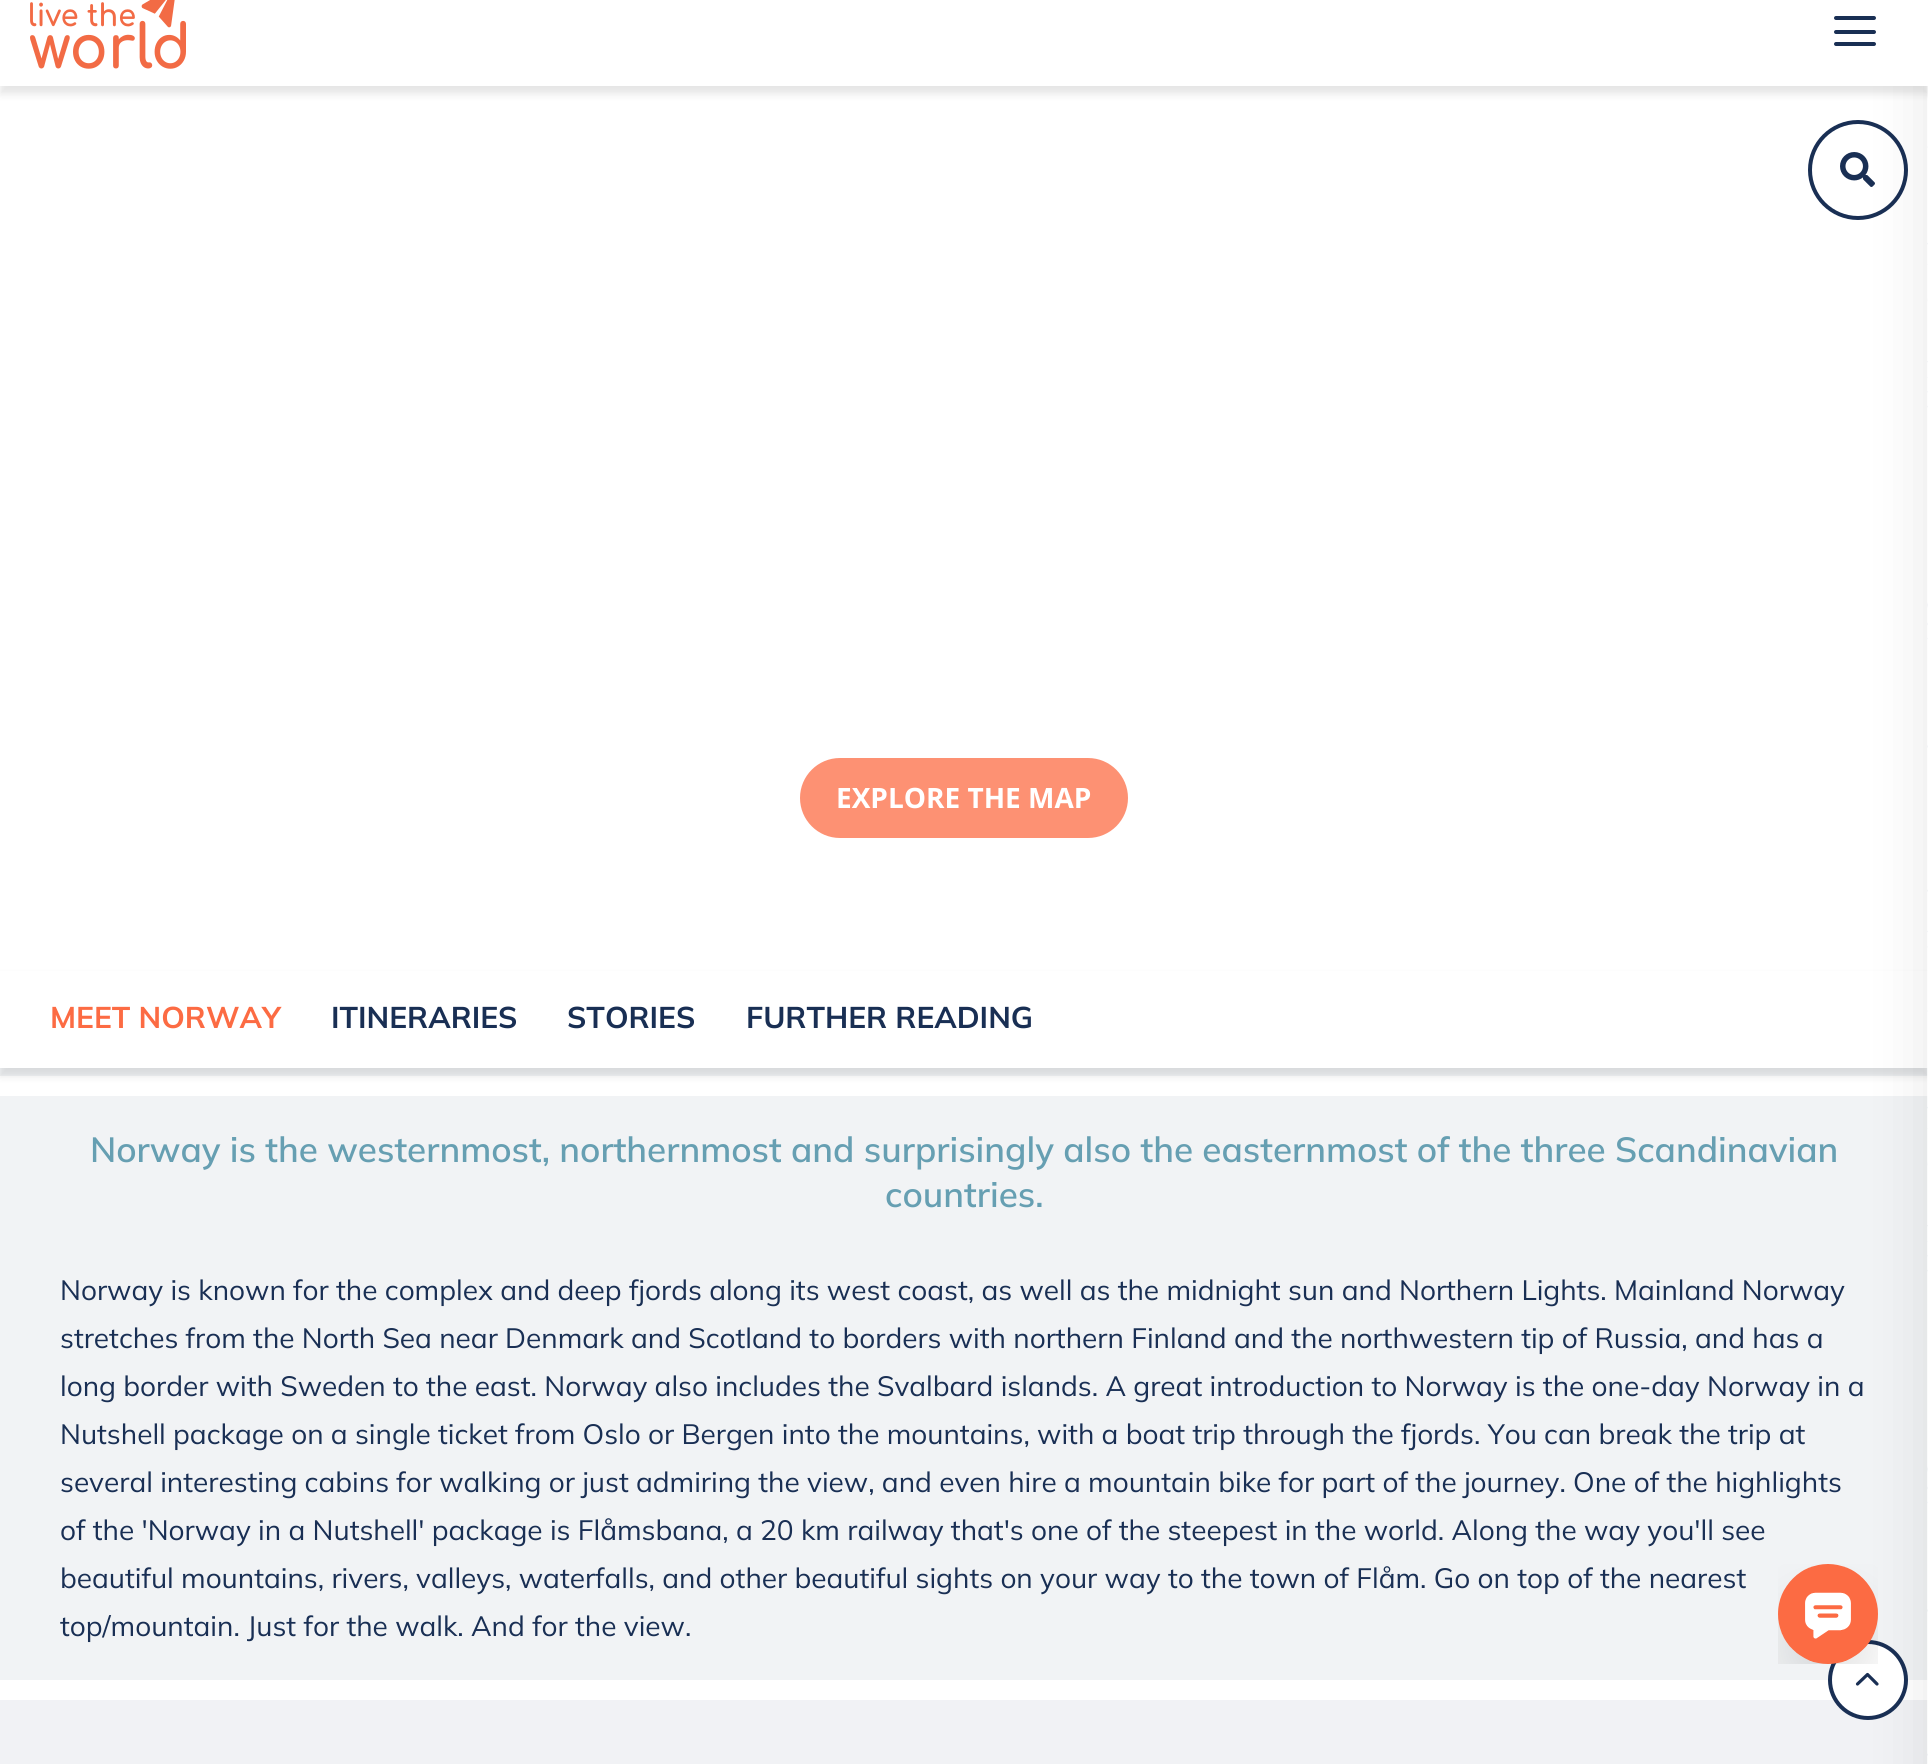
import math
import cairo


def use_color(cr, r, g, b):
  cr.set_source_rgb(r / 255, g / 255, b / 255)

def text(cr, x, y, s, family, size, color, bold=False, italic=False):
  cr.select_font_face(family, cairo.FONT_SLANT_ITALIC if italic else cairo.FONT_SLANT_NORMAL, cairo.FONT_WEIGHT_BOLD if bold else cairo.FONT_WEIGHT_NORMAL)
  cr.set_font_size(size)
  use_color(cr, *color)
  cr.move_to(x, y)
  cr.show_text(s)

def box(cr, x, y, w, h, *color):
  use_color(cr, *color)
  cr.rectangle(x, y, w, h)
  cr.fill()

def round_rect(cr, x, y, w, h, r):
  cr.new_sub_path()
  for i, (u, v) in enumerate([(x + w - r, y + h - r), (x + r, y + h - r), (x + r, y + r), (x + w - r, y + r)]):
    cr.arc(u, v, r, i * math.pi / 2, (i + 1) * math.pi / 2)
  cr.close_path()

def shadow(cr, x, y, w, h, r, blur, alpha):
  cr.push_group_with_content(cairo.CONTENT_ALPHA)
  cr.set_operator(cairo.OPERATOR_SOURCE)
  for i in range(15, -16, -2):
    e = blur * i / 6
    if min(w, h) + 2 * e > 0:
      cr.set_source_rgba(0, 0, 0, alpha * math.erfc((i - 1) / 8.5) / 2)
      round_rect(cr, x - e, y - e, w + 2 * e, h + 2 * e, max(0, min(r + e + blur * .6, min(w, h) / 2 + e)))
      cr.fill()
  cr.mask(cr.pop_group())

def picture(cr, path, x, y, w, h):
  cr.save()
  cr.set_source_surface(cairo.ImageSurface.create_from_png(path), x, y)
  cr.rectangle(x, y, w, h)
  cr.fill()
  cr.restore()

def draw(cr):
  use_color(cr, 255, 255, 255)
  cr.paint()
  box(cr, 0, 1068, 1928, 8, 241, 243, 245)
  use_color(cr, 0, 0, 0)
  shadow(cr, 0, 976, 1928, 100, 0, 4, 0.1)
  box(cr, 0, 971, 1928, 97, 255, 255, 255)
  box(cr, 0, 1096, 1928, 584, 241, 243, 245)
  box(cr, 0, 1700, 1928, 64, 241, 242, 245)
  cr.arc(1858, 170, 48, 0, 2 * math.pi)
  use_color(cr, 25, 47, 84)
  cr.set_line_width(4)
  cr.stroke()
  picture(cr, "img_02.png", 1840, 152, 35, 35)
  use_color(cr, 0, 0, 0)
  shadow(cr, 1928, 40, 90, 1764, 0, 30, 0.1)
  picture(cr, "img_03.png", 1927, 86, 1, 1678)
  shadow(cr, 0, -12, 1928, 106, 0, 4, 0.1)
  box(cr, 0, 0, 1928, 86, 255, 255, 255)
  picture(cr, "img_01.png", 30, 0, 156, 69)
  use_color(cr, 25, 47, 84)
  round_rect(cr, 1834, 16, 42, 4, 2)
  cr.fill()
  round_rect(cr, 1834, 30, 42, 4, 2)
  cr.fill()
  round_rect(cr, 1834, 42, 42, 4, 2)
  cr.fill()
  use_color(cr, 253, 145, 115)
  round_rect(cr, 803, 761, 322, 74, 37)
  cr.fill_preserve()
  cr.set_line_width(6)
  cr.stroke()
  use_color(cr, 255, 255, 255)
  cr.arc(1868, 1680, 38, 0, 2 * math.pi)
  cr.fill_preserve()
  use_color(cr, 25, 47, 84)
  cr.set_line_width(4)
  cr.stroke()
  picture(cr, "img_04.png", 1778, 1564, 100, 100)
  cr.new_path()
  cr.move_to(1877, 1684)
  cr.line_to(1867.5, 1674.5)
  cr.line_to(1857.5, 1684)
  cr.set_line_width(3.2)
  cr.set_line_cap(cairo.LINE_CAP_ROUND)
  cr.set_line_join(cairo.LINE_JOIN_ROUND)
  cr.stroke()
  text(cr, 836, 808, "EXPLORE THE MAP", "Open Sans", 28, (255, 255, 255), bold=True)
  text(cr, 50, 1028, "MEET NORWAY", "Mulish", 30, (252, 107, 67), bold=True)
  text(cr, 331, 1028, "ITINERARIES", "Mulish", 30, (25, 47, 84), bold=True)
  text(cr, 567, 1028, "STORIES", "Mulish", 30, (25, 47, 84), bold=True)
  text(cr, 746, 1028, "FURTHER READING", "Mulish", 30, (25, 47, 84), bold=True)
  text(cr, 90, 1162, "Norway is the westernmost, northernmost and surprisingly also the easternmost of the three Scandinavian", "Mulish SemiBold", 35, (102, 159, 178))
  text(cr, 885, 1207, "countries.", "Mulish SemiBold", 35, (102, 159, 178))
  text(cr, 60, 1300, "Norway is known for the complex and deep fjords along its west coast, as well as the midnight sun and Northern Lights. Mainland Norway", "Mulish", 28, (25, 47, 84))
  text(cr, 60, 1348, "stretches from the North Sea near Denmark and Scotland to borders with northern Finland and the northwestern tip of Russia, and has a", "Mulish", 28, (25, 47, 84))
  text(cr, 60, 1396, "long border with Sweden to the east. Norway also includes the Svalbard islands. A great introduction to Norway is the one-day Norway in a", "Mulish", 28, (25, 47, 84))
  text(cr, 60, 1444, "Nutshell package on a single ticket from Oslo or Bergen into the mountains, with a boat trip through the fjords. You can break the trip at", "Mulish", 28, (25, 47, 84))
  text(cr, 60, 1492, "several interesting cabins for walking or just admiring the view, and even hire a mountain bike for part of the journey. One of the highlights", "Mulish", 28, (25, 47, 84))
  text(cr, 60, 1540, "of the 'Norway in a Nutshell' package is Flåmsbana, a 20 km railway that's one of the steepest in the world. Along the way you'll see", "Mulish", 28, (25, 47, 84))
  text(cr, 60, 1588, "beautiful mountains, rivers, valleys, waterfalls, and other beautiful sights on your way to the town of Flåm. Go on top of the nearest", "Mulish", 28, (25, 47, 84))
  text(cr, 60, 1636, "top/mountain. Just for the walk. And for the view.", "Mulish", 28, (25, 47, 84))


surface = cairo.ImageSurface(cairo.FORMAT_RGB24, 1928, 1764)
cr = cairo.Context(surface)
options = cairo.FontOptions()
options.set_hint_metrics(cairo.HINT_METRICS_OFF)
options.set_hint_style(cairo.HINT_STYLE_NONE)
cr.set_font_options(options)
cr.set_miter_limit(4)
draw(cr)
surface.write_to_png("out.png")
